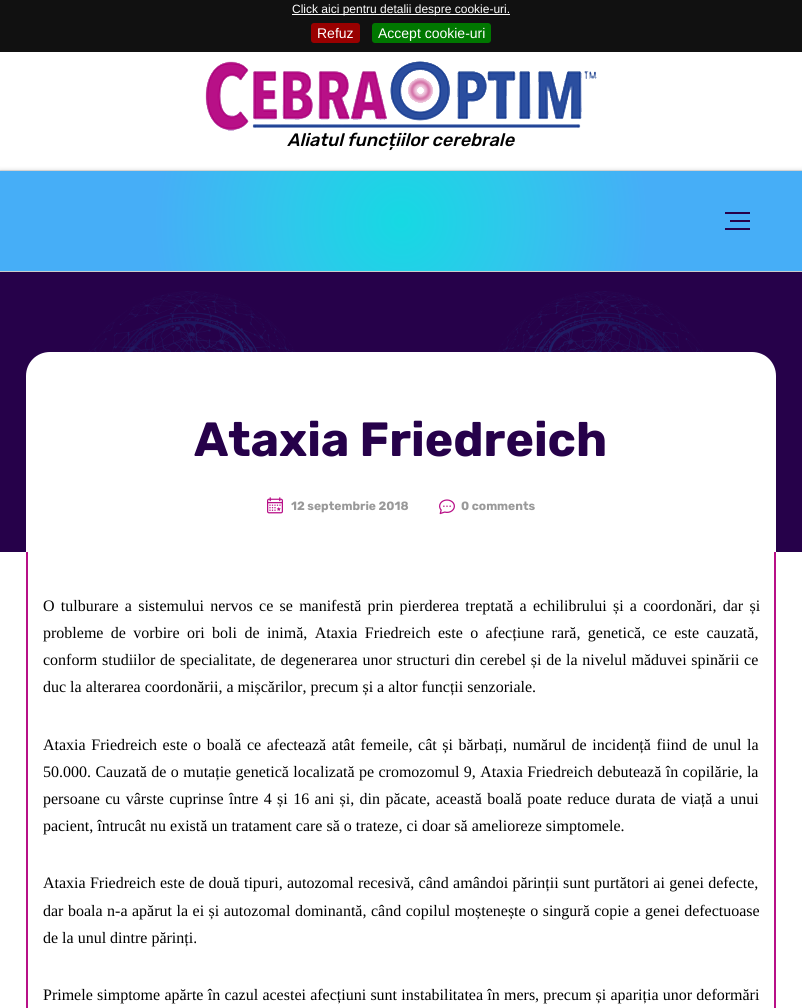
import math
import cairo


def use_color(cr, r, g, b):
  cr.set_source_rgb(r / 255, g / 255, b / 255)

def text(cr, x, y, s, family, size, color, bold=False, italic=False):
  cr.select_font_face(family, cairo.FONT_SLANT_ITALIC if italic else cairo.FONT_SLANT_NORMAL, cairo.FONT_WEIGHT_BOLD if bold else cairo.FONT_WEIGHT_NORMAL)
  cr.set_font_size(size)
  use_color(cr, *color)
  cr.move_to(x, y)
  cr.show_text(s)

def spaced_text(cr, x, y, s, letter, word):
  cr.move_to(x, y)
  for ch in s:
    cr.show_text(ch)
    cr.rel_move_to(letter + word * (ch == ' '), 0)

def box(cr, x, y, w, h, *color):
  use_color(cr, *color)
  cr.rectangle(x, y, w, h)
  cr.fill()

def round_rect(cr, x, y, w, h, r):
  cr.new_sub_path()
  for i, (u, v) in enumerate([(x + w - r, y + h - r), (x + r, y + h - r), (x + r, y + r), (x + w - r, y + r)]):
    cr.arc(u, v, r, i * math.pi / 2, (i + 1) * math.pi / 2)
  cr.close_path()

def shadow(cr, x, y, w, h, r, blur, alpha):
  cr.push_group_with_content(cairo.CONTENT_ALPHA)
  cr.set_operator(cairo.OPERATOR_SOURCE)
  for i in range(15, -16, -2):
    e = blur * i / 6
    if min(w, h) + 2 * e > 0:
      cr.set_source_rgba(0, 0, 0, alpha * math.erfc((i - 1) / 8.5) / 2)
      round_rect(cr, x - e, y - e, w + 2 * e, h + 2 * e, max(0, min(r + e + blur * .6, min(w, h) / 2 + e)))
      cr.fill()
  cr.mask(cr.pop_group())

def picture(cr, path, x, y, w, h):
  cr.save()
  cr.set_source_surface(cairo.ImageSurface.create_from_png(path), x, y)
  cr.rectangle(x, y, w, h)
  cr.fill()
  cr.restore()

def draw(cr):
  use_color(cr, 255, 255, 255)
  cr.paint()
  box(cr, 0, 0, 802, 52, 17, 17, 17)
  box(cr, 292, 14, 218, 1, 255, 255, 255)
  use_color(cr, 153, 0, 0)
  round_rect(cr, 311, 23, 49, 20, 3)
  cr.fill()
  use_color(cr, 0, 119, 0)
  round_rect(cr, 372, 23, 119, 20, 3)
  cr.fill()
  box(cr, 0, 170, 802, 1, 230, 230, 230)
  picture(cr, "img_01.png", 205, 61, 392, 70)
  box(cr, 0, 271, 802, 1, 221, 221, 221)
  box(cr, 0, 272, 802, 280, 38, 1, 74)
  use_color(cr, 0, 0, 0)
  shadow(cr, 0, 171, 802, 100, 0, 2.5, 0.2)
  gradient = cairo.RadialGradient(401, 221, 0, 401, 221, 248)
  gradient.add_color_stop_rgba(0, 0.086, 0.851, 0.89, 1)
  gradient.add_color_stop_rgba(0.47, 0.188, 0.78, 0.925, 1)
  gradient.add_color_stop_rgba(1, 0.275, 0.682, 0.969, 1)
  cr.set_source(gradient)
  cr.rectangle(0, 171, 802, 100)
  cr.fill()
  box(cr, 725, 212, 25, 2, 38, 1, 74)
  box(cr, 730, 220, 20, 2, 38, 1, 74)
  box(cr, 725, 228, 25, 2, 38, 1, 74)
  picture(cr, "img_02.png", 88, 291, 616, 61)
  use_color(cr, 255, 255, 255)
  cr.new_path()
  cr.move_to(50, 352)
  cr.line_to(752, 352)
  cr.curve_to(765.5, 352, 776, 362.5, 776, 376)
  cr.line_to(776, 552)
  cr.line_to(26, 552)
  cr.line_to(26, 376)
  cr.curve_to(26, 362.5, 36.5, 352, 50, 352)
  cr.close_path()
  cr.fill()
  picture(cr, "img_03.png", 267, 497, 16, 17)
  picture(cr, "img_04.png", 439, 499, 16, 16)
  box(cr, 774, 552, 2, 456, 184, 16, 135)
  box(cr, 26, 552, 2, 456, 184, 16, 135)
  text(cr, 292, 13, "Click aici pentru detalii despre cookie-uri.", "Liberation Sans", 12, (255, 255, 255))
  text(cr, 317, 38, "Refuz", "Liberation Sans", 14, (255, 255, 255))
  text(cr, 378, 38, "Accept cookie-uri", "Liberation Sans", 14, (255, 255, 255))
  text(cr, 287, 146, "Aliatul funcțiilor cerebrale", "Rubik Medium", 18, (0, 0, 0), italic=True)
  text(cr, 194, 456, "Ataxia Friedreich", "Rubik", 48, (38, 1, 74), bold=True)
  text(cr, 291, 510, "12 septembrie 2018", "Rubik", 12, (153, 153, 153), bold=True)
  text(cr, 461, 510, "0 comments", "Rubik", 12, (153, 153, 153), bold=True)
  cr.select_font_face("Liberation Serif")
  cr.set_font_size(16)
  use_color(cr, 0, 0, 0)
  spaced_text(cr, 43, 611, "O tulburare a sistemului nervos ce se manifestă prin pierderea treptată a echilibrului și a coordonări, dar și", 0, 2.25)
  spaced_text(cr, 43, 638, "probleme de vorbire ori boli de inimă, Ataxia Friedreich este o afecțiune rară, genetică, ce este cauzată,", 0, 3.4)
  spaced_text(cr, 43, 665, "conform studiilor de specialitate, de degenerarea unor structuri din cerebel și de la nivelul măduvei spinării ce", 0, 0.75)
  text(cr, 43, 692, "duc la alterarea coordonării, a mișcărilor, precum și a altor funcții senzoriale.", "Liberation Serif", 16, (0, 0, 0))
  spaced_text(cr, 43, 750, "Ataxia Friedreich este o boală ce afectează atât femeile, cât și bărbați, numărul de incidență fiind de unul la", 0, 1.6)
  spaced_text(cr, 43, 777, "50.000. Cauzată de o mutație genetică localizată pe cromozomul 9, Ataxia Friedreich debutează în copilărie, la", 0, 0.4)
  spaced_text(cr, 43, 804, "persoane cu vârste cuprinse între 4 și 16 ani și, din păcate, această boală poate reduce durata de viață a unui", 0, 1.4)
  text(cr, 43, 831, "pacient, întrucât nu există un tratament care să o trateze, ci doar să amelioreze simptomele.", "Liberation Serif", 16, (0, 0, 0))
  spaced_text(cr, 43, 888, "Ataxia Friedreich este de două tipuri, autozomal recesivă, când amândoi părinții sunt purtători ai genei defecte,", 0, 0.3)
  spaced_text(cr, 43, 916, "dar boala n-a apărut la ei și autozomal dominantă, când copilul moștenește o singură copie a genei defectuoase", 0, 0.5)
  text(cr, 43, 943, "de la unul dintre părinți.", "Liberation Serif", 16, (0, 0, 0))
  spaced_text(cr, 43, 1000, "Primele simptome apărte în cazul acestei afecțiuni sunt instabilitatea în mers, precum și apariția unor deformări", 0, 0.25)


surface = cairo.ImageSurface(cairo.FORMAT_RGB24, 802, 1008)
cr = cairo.Context(surface)
options = cairo.FontOptions()
options.set_hint_metrics(cairo.HINT_METRICS_OFF)
options.set_hint_style(cairo.HINT_STYLE_NONE)
cr.set_font_options(options)
cr.set_miter_limit(4)
draw(cr)
surface.write_to_png("out.png")
